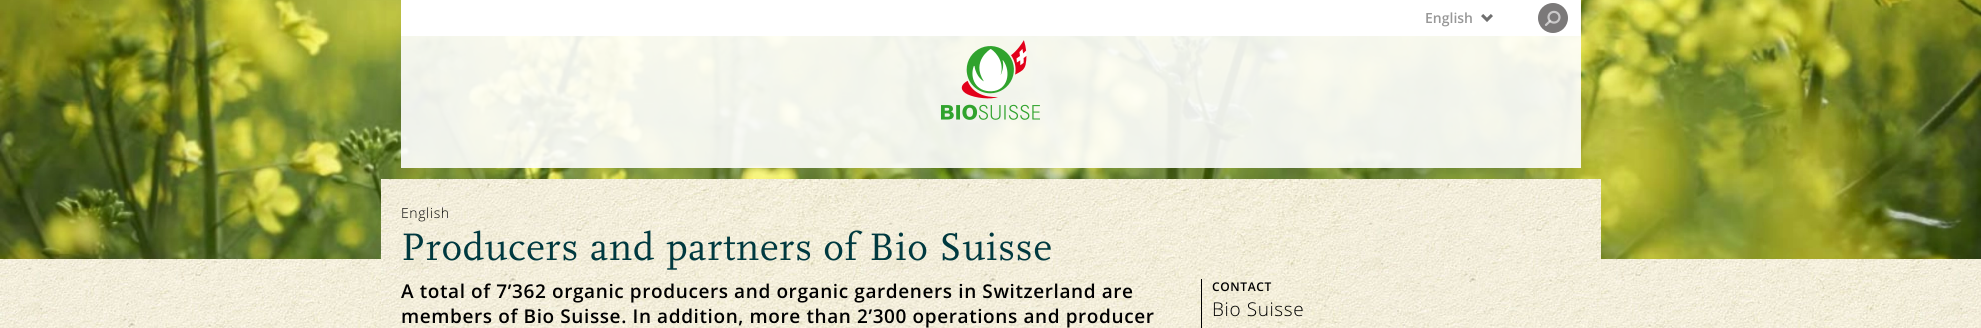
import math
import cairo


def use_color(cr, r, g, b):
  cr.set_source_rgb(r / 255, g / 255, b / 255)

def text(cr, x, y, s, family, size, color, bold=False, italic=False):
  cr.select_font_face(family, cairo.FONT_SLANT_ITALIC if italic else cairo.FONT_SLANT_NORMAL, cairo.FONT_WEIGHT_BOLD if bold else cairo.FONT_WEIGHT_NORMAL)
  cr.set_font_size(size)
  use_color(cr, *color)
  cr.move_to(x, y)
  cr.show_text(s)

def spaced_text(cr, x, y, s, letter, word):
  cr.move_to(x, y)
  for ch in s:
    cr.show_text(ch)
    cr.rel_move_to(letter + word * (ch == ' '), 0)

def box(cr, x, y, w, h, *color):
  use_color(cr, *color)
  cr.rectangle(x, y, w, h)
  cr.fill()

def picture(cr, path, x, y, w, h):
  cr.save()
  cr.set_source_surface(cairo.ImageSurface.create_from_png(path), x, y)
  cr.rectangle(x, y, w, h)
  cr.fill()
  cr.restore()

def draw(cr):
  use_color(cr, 255, 255, 255)
  cr.paint()
  picture(cr, "img_01.png", 0, 259, 1981, 69)
  picture(cr, "img_02.png", 0, 0, 1981, 259)
  cr.set_source_rgba(1, 1, 1, 0.9)
  cr.rectangle(401, 36, 1180, 132)
  cr.fill()
  box(cr, 401, 0, 1180, 36, 255, 255, 255)
  picture(cr, "img_03.png", 1481, 14, 12, 8)
  picture(cr, "img_04.png", 1538, 3, 30, 30)
  picture(cr, "img_05.png", 941, 40, 99, 80)
  picture(cr, "img_06.png", 381, 179, 1220, 149)
  box(cr, 1201, 279, 1, 49, 0, 0, 0)
  text(cr, 1425, 23, "English", "Open Sans SemiBold", 14, (151, 151, 151))
  cr.select_font_face("Open Sans Light")
  use_color(cr, 0, 0, 0)
  spaced_text(cr, 401, 218, "English", 0.6, 0)
  cr.select_font_face("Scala")
  cr.set_font_size(40)
  use_color(cr, 0, 57, 63)
  spaced_text(cr, 401, 260, "Producers and partners of Bio Suisse", 0.8, 0)
  cr.select_font_face("Open Sans SemiBold")
  cr.set_font_size(19)
  use_color(cr, 0, 0, 0)
  spaced_text(cr, 401, 298, "A total of 7’362 organic producers and organic gardeners in Switzerland are", 0.6, 0)
  spaced_text(cr, 401, 323, "members of Bio Suisse. In addition, more than 2’300 operations and producer", 0.6, 0)
  cr.set_font_size(12)
  spaced_text(cr, 1212, 291, "CONTACT", 0.6, 0)
  cr.select_font_face("Open Sans Light")
  cr.set_font_size(19)
  spaced_text(cr, 1212, 316, "Bio Suisse", 0.6, 0)


surface = cairo.ImageSurface(cairo.FORMAT_RGB24, 1981, 328)
cr = cairo.Context(surface)
options = cairo.FontOptions()
options.set_hint_metrics(cairo.HINT_METRICS_OFF)
options.set_hint_style(cairo.HINT_STYLE_NONE)
cr.set_font_options(options)
cr.set_miter_limit(4)
draw(cr)
surface.write_to_png("out.png")
